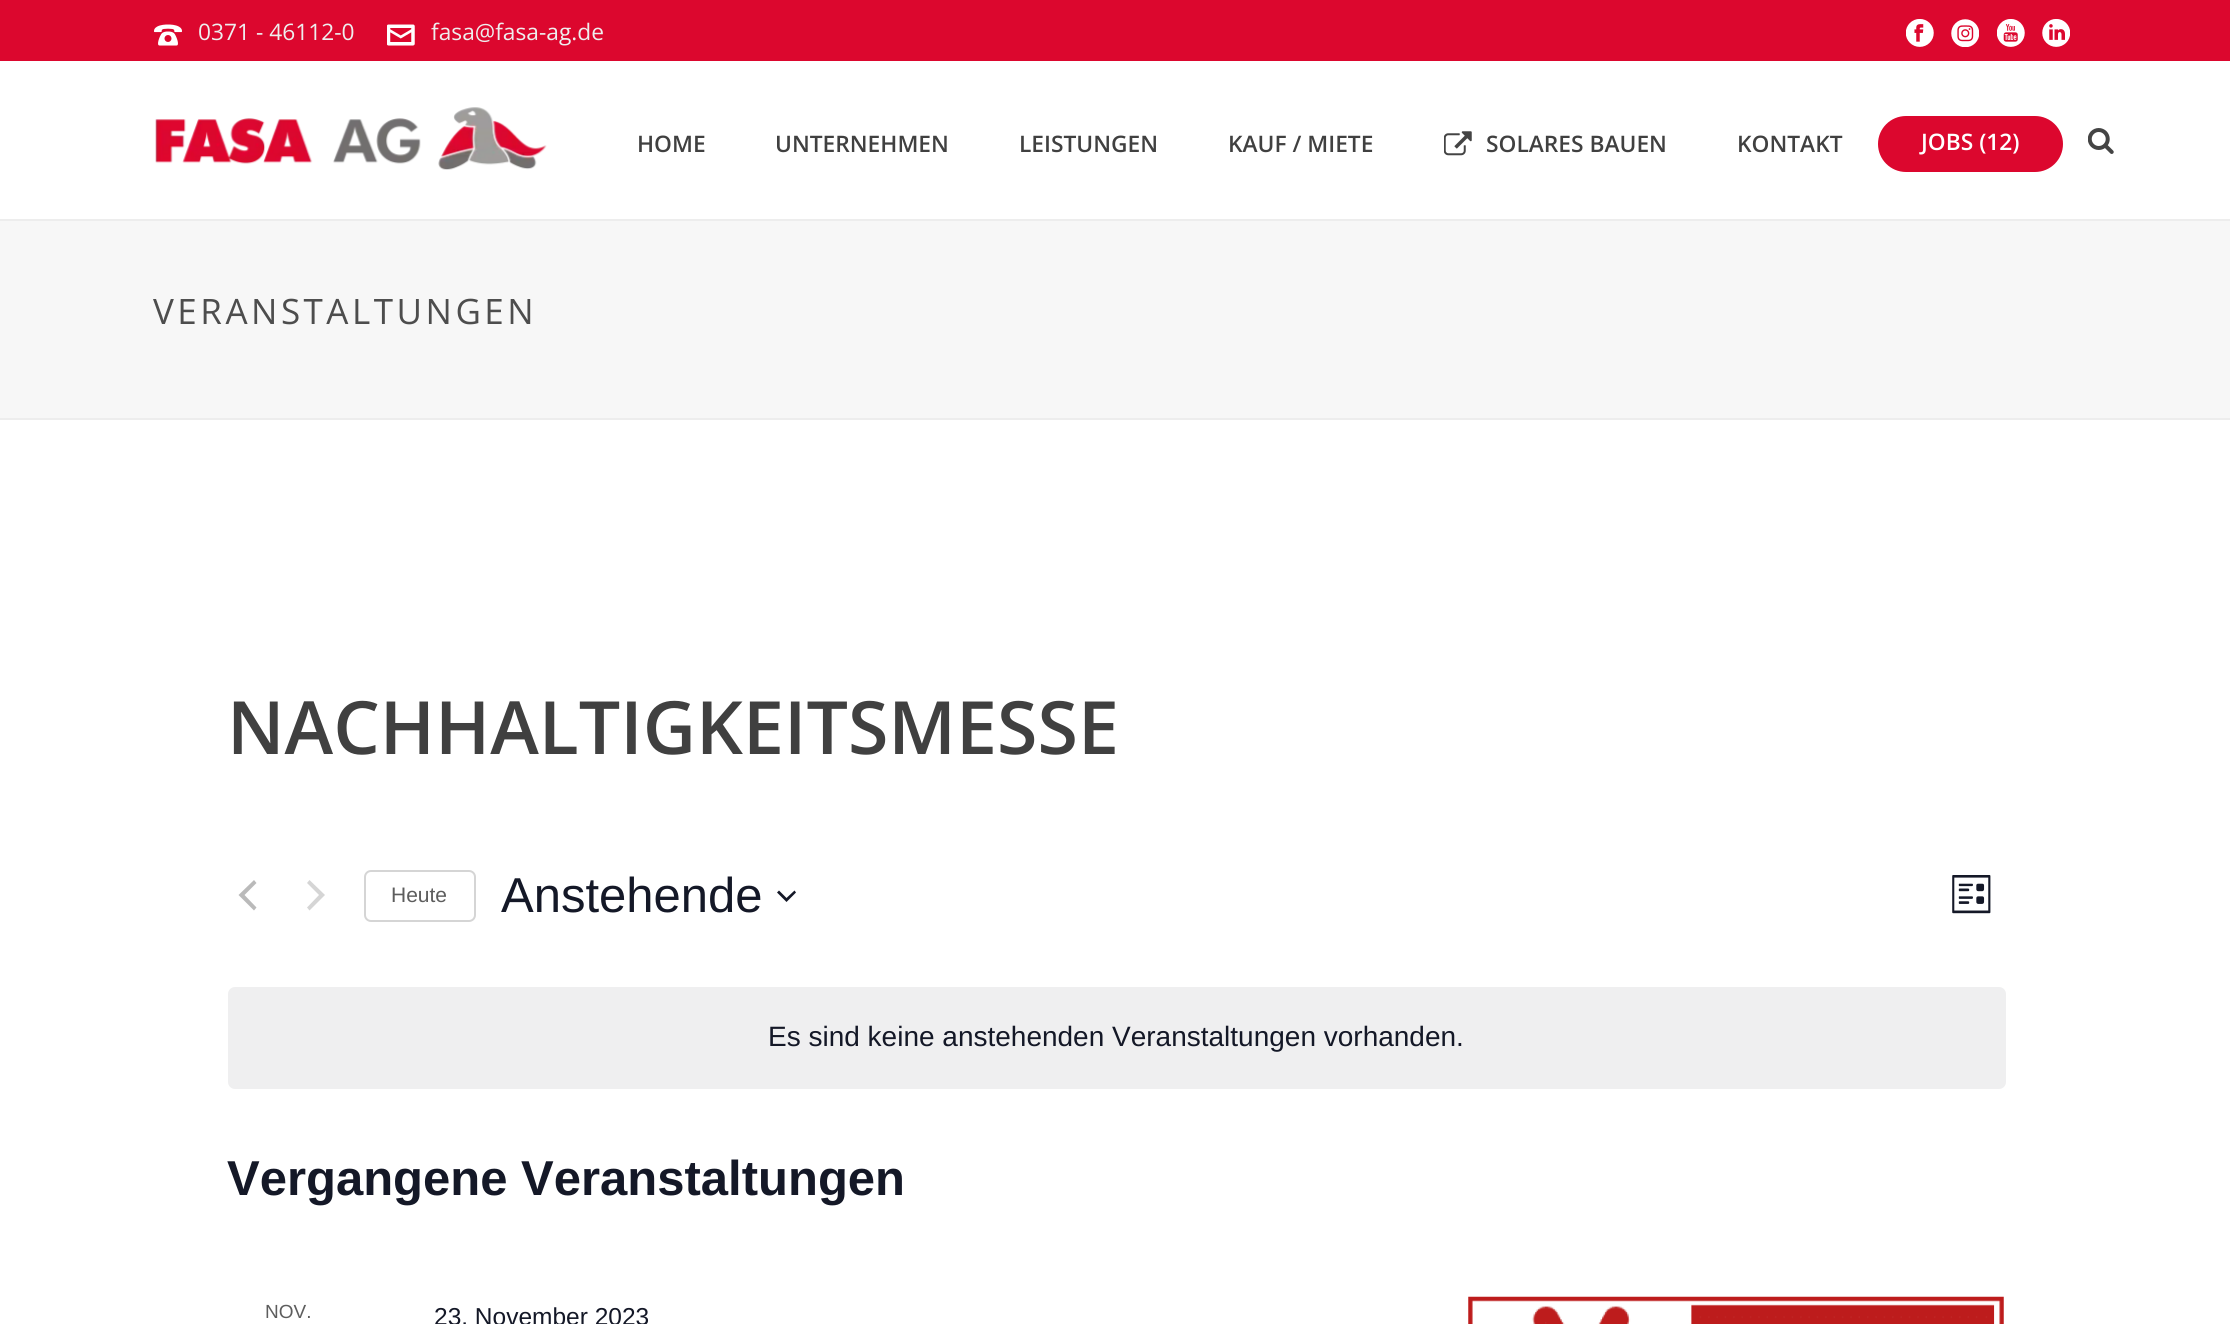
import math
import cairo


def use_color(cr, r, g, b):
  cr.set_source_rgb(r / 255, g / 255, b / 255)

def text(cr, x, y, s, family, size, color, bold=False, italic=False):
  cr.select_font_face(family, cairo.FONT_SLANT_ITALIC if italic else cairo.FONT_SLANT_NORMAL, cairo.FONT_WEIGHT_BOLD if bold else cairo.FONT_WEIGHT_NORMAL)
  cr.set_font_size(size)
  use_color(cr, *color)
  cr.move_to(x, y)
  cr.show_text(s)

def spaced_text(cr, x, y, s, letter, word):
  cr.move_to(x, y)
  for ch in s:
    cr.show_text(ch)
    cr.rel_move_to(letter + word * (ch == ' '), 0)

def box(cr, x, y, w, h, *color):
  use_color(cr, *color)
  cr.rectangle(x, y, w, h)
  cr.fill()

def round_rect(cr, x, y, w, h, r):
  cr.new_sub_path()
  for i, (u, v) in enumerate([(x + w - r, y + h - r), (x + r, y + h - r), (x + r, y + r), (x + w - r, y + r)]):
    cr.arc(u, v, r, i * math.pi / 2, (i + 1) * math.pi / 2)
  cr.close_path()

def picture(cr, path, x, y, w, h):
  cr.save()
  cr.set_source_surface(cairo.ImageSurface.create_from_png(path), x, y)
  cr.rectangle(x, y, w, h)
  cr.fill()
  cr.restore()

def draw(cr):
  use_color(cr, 255, 255, 255)
  cr.paint()
  box(cr, 0, 221, 2230, 197, 247, 247, 247)
  box(cr, 0, 418, 2230, 2, 237, 237, 237)
  box(cr, 0, 0, 2230, 61, 220, 7, 46)
  picture(cr, "img_01.png", 154, 24, 28, 22)
  picture(cr, "img_02.png", 387, 24, 28, 22)
  picture(cr, "img_03.png", 1906, 19, 28, 28)
  picture(cr, "img_04.png", 1951, 19, 28, 28)
  picture(cr, "img_05.png", 1997, 19, 28, 28)
  picture(cr, "img_06.png", 2042, 19, 28, 28)
  box(cr, 0, 219, 2230, 2, 237, 237, 237)
  picture(cr, "img_07.png", 155, 107, 392, 63)
  picture(cr, "img_08.png", 1444, 131, 28, 25)
  use_color(cr, 220, 7, 46)
  round_rect(cr, 1878, 116, 185, 56, 28)
  cr.fill()
  picture(cr, "img_09.png", 2088, 128, 26, 26)
  use_color(cr, 186, 186, 186)
  cr.new_path()
  cr.move_to(256.5, 907.5)
  cr.line_to(254, 910.5)
  cr.line_to(238.5, 895)
  cr.line_to(254, 880)
  cr.line_to(256.5, 883)
  cr.line_to(244.5, 895)
  cr.close_path()
  cr.fill()
  use_color(cr, 213, 213, 213)
  cr.new_path()
  cr.move_to(307, 883)
  cr.line_to(309.5, 880)
  cr.line_to(325, 895)
  cr.line_to(309.5, 910.5)
  cr.line_to(307, 907.5)
  cr.line_to(319, 895)
  cr.close_path()
  cr.fill()
  round_rect(cr, 365, 871, 110, 50, 6)
  cr.stroke()
  use_color(cr, 20, 24, 39)
  cr.set_fill_rule(cairo.FILL_RULE_EVEN_ODD)
  cr.new_path()
  cr.move_to(779, 890.5)
  cr.line_to(786.5, 898)
  cr.line_to(794.5, 890.5)
  cr.line_to(796, 892.5)
  cr.line_to(786.5, 902)
  cr.line_to(777, 892.5)
  cr.close_path()
  cr.fill()
  picture(cr, "img_10.png", 1952, 875, 39, 39)
  use_color(cr, 239, 239, 240)
  round_rect(cr, 228, 987, 1778, 102, 7)
  cr.fill()
  picture(cr, "img_11.png", 1468, 1296, 536, 28)
  text(cr, 198, 40, "0371 - 46112-0", "Open Sans", 22.75, (238, 238, 238))
  text(cr, 431, 40, "fasa@fasa-ag.de", "Open Sans", 22.75, (238, 238, 238))
  text(cr, 637, 152, "HOME", "Open Sans SemiBold", 22.75, (64, 64, 64))
  text(cr, 775, 152, "UNTERNEHMEN", "Open Sans SemiBold", 22.75, (64, 64, 64))
  text(cr, 1019, 152, "LEISTUNGEN", "Open Sans SemiBold", 22.75, (64, 64, 64))
  text(cr, 1228, 152, "KAUF / MIETE", "Open Sans SemiBold", 22.75, (64, 64, 64))
  text(cr, 1486, 152, "SOLARES BAUEN", "Open Sans SemiBold", 22.75, (64, 64, 64))
  text(cr, 1737, 152, "KONTAKT", "Open Sans SemiBold", 22.75, (64, 64, 64))
  text(cr, 1921, 150, "JOBS (12)", "Open Sans SemiBold", 22.75, (255, 255, 255))
  cr.select_font_face("Open Sans")
  cr.set_font_size(35)
  use_color(cr, 77, 77, 77)
  spaced_text(cr, 153, 324, "VERANSTALTUNGEN", 3.5, 0)
  text(cr, 227, 754, "NACHHALTIGKEITSMESSE", "Open Sans SemiBold", 73.5, (64, 64, 64))
  text(cr, 391, 902, "Heute", "Liberation Sans", 21, (93, 93, 93))
  text(cr, 501, 912, "Anstehende", "Liberation Sans", 49, (20, 24, 39))
  text(cr, 768, 1046, "Es sind keine anstehenden Veranstaltungen vorhanden.", "Liberation Sans", 28, (20, 24, 39))
  text(cr, 227, 1195, "Vergangene Veranstaltungen", "Liberation Sans", 49, (20, 24, 39), bold=True)
  text(cr, 265, 1318, "NOV.", "Liberation Sans", 19, (93, 93, 93))
  text(cr, 434, 1325, "23. November 2023", "Liberation Sans", 24.5, (20, 24, 39))


surface = cairo.ImageSurface(cairo.FORMAT_RGB24, 2230, 1324)
cr = cairo.Context(surface)
options = cairo.FontOptions()
options.set_hint_metrics(cairo.HINT_METRICS_OFF)
options.set_hint_style(cairo.HINT_STYLE_NONE)
cr.set_font_options(options)
cr.set_miter_limit(4)
draw(cr)
surface.write_to_png("out.png")
